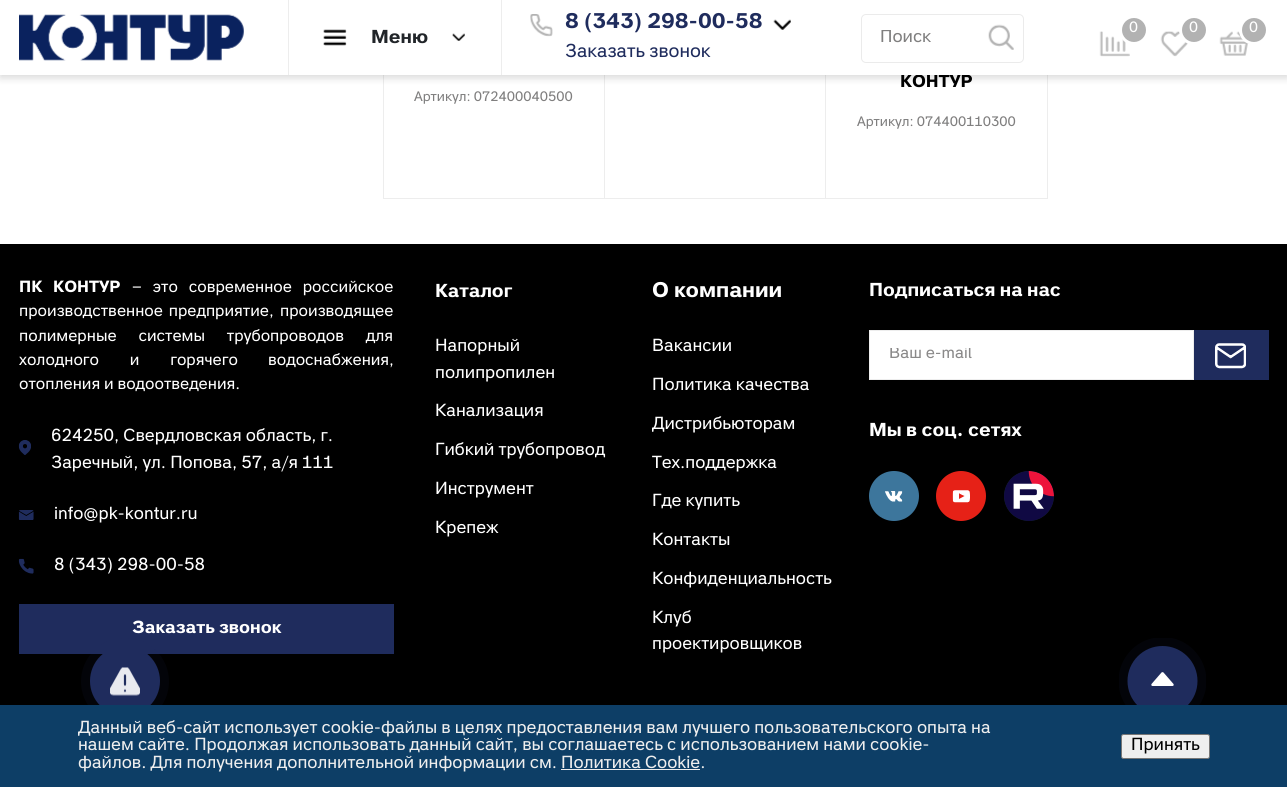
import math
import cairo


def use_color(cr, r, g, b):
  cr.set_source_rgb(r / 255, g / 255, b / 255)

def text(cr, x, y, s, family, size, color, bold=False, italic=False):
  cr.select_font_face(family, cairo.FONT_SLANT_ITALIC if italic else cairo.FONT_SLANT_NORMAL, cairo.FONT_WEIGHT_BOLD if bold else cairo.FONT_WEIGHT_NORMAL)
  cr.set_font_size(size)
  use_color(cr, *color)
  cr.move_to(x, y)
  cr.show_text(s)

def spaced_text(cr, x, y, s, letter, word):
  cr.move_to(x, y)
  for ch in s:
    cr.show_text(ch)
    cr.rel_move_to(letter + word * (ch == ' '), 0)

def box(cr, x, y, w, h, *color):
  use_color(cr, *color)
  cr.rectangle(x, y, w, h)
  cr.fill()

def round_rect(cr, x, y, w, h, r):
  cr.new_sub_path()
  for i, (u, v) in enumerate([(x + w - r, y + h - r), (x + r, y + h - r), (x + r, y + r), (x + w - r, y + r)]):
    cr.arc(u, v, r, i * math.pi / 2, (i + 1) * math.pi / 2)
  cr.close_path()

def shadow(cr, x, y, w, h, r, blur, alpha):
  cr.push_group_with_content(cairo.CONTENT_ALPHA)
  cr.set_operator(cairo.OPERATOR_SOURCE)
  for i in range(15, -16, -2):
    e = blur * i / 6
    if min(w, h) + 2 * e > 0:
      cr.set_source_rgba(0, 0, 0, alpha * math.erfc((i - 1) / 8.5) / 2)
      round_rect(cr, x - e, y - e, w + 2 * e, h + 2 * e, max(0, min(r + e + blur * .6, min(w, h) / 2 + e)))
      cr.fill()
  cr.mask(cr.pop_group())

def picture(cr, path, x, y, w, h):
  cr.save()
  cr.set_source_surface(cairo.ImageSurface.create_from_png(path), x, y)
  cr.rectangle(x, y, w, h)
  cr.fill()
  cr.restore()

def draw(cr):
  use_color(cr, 255, 255, 255)
  cr.paint()
  cr.rectangle(383.5, -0.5, 221, 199)
  use_color(cr, 237, 237, 237)
  cr.set_line_width(1)
  cr.stroke()
  cr.rectangle(604.5, -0.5, 221, 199)
  cr.stroke()
  cr.rectangle(825.5, -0.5, 222, 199)
  cr.stroke()
  use_color(cr, 0, 0, 0)
  shadow(cr, 0, 3, 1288, 75, 0, 4, 0.15)
  box(cr, 0, 244, 1287, 461, 0, 0, 0)
  picture(cr, "img_10.png", 18, 440, 13, 15)
  picture(cr, "img_11.png", 18, 510, 16, 10)
  picture(cr, "img_12.png", 18, 558, 16, 16)
  box(cr, 19, 604, 375, 50, 31, 44, 93)
  use_color(cr, 255, 255, 255)
  cr.rectangle(869.5, 330.5, 324, 49)
  cr.fill_preserve()
  use_color(cr, 237, 237, 237)
  cr.stroke()
  box(cr, 1194, 330, 75, 50, 31, 44, 93)
  picture(cr, "img_13.png", 1215, 343, 31, 26)
  use_color(cr, 61, 118, 156)
  cr.arc(894, 496, 25, 0, 2 * math.pi)
  cr.fill()
  picture(cr, "img_14.png", 885, 491, 18, 11)
  use_color(cr, 230, 33, 23)
  cr.arc(961, 496, 25, 0, 2 * math.pi)
  cr.fill()
  picture(cr, "img_15.png", 952, 490, 18, 13)
  use_color(cr, 17, 33, 43)
  cr.arc(1029, 496, 25, 0, 2 * math.pi)
  cr.fill()
  picture(cr, "img_16.png", 1004, 471, 50, 50)
  use_color(cr, 31, 44, 93)
  cr.arc(125, 681, 35, 0, 2 * math.pi)
  cr.fill()
  picture(cr, "img_17.png", 110, 667, 30, 29)
  cr.set_source_rgba(0.122, 0.173, 0.365, 0.1)
  round_rect(cr, 81, 638, 88, 87, 43.5)
  cr.fill()
  cr.save()
  cr.rectangle(1119, 638, 87, 87)
  cr.clip()
  cr.arc(1162.5, 681, 44, 0, 2 * math.pi)
  cr.fill()
  cr.restore()
  use_color(cr, 31, 44, 93)
  cr.arc(1162.5, 681, 35, 0, 2 * math.pi)
  cr.fill()
  use_color(cr, 255, 255, 255)
  cr.new_path()
  cr.move_to(1161.5, 672.5)
  cr.curve_to(1162, 672, 1163, 672, 1163.5, 672.5)
  cr.line_to(1173.5, 684)
  cr.curve_to(1174, 685, 1173.5, 686, 1172.5, 686)
  cr.line_to(1152.5, 686)
  cr.curve_to(1151.5, 686, 1151, 685, 1151.5, 684)
  cr.close_path()
  cr.fill()
  box(cr, 0, 705, 1287, 82, 13, 62, 102)
  box(cr, 561, 769, 139, 1, 238, 238, 238)
  use_color(cr, 239, 239, 239)
  round_rect(cr, 1121.5, 734.5, 88, 24, 2)
  cr.fill_preserve()
  use_color(cr, 118, 118, 118)
  cr.stroke()
  text(cr, 414, 101, "Артикул: 072400040500", "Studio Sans", 13.75, (128, 127, 127))
  text(cr, 900, 87, "КОНТУР", "Studio Sans", 17.5, (0, 0, 0), bold=True)
  box(cr, 0, 0, 1287, 75, 255, 255, 255)
  picture(cr, "img_06.png", 1219, 31, 30, 25)
  use_color(cr, 178, 178, 178)
  cr.arc(1254, 30, 13.5, 0, 2 * math.pi)
  cr.fill_preserve()
  use_color(cr, 255, 255, 255)
  cr.set_line_width(3)
  cr.stroke()
  text(cr, 1249, 32, "0", "Studio Sans", 15, (255, 255, 255))
  picture(cr, "img_05.png", 1160, 31, 28, 26)
  use_color(cr, 178, 178, 178)
  cr.arc(1194, 30, 13.5, 0, 2 * math.pi)
  cr.fill_preserve()
  use_color(cr, 255, 255, 255)
  cr.stroke()
  text(cr, 1189, 32, "0", "Studio Sans", 15, (255, 255, 255))
  picture(cr, "img_04.png", 1099, 31, 31, 26)
  use_color(cr, 178, 178, 178)
  cr.arc(1134, 30, 13.5, 0, 2 * math.pi)
  cr.fill_preserve()
  use_color(cr, 255, 255, 255)
  cr.stroke()
  text(cr, 1129, 32, "0", "Studio Sans", 15, (255, 255, 255))
  round_rect(cr, 861.5, 14.5, 162, 48, 4.5)
  use_color(cr, 235, 235, 235)
  cr.set_line_width(1)
  cr.stroke()
  picture(cr, "img_09.png", 988, 24, 26, 26)
  cr.save()
  cr.rectangle(880, 30, 93, 18)
  cr.clip()
  text(cr, 880, 42, "Поиск", "Studio Sans", 17.5, (128, 127, 127))
  cr.restore()
  text(cr, 565, 57, "Заказать звонок", "Studio Sans", 18.75, (31, 44, 93))
  picture(cr, "img_03.png", 773, 19, 18, 11)
  picture(cr, "img_02.png", 530, 14, 23, 23)
  text(cr, 565, 28, "8 (343) 298-00-58", "Studio Sans", 21.25, (31, 44, 93), bold=True)
  picture(cr, "img_08.png", 452, 33, 13, 8)
  picture(cr, "img_07.png", 323, 29, 24, 17)
  text(cr, 371, 43, "Меню", "Studio Sans", 18.75, (33, 37, 41), bold=True)
  box(cr, 288, 0, 1, 75, 237, 237, 237)
  box(cr, 501, 0, 1, 75, 237, 237, 237)
  picture(cr, "img_01.png", 19, 14, 225, 47)
  text(cr, 857, 126, "Артикул: 074400110300", "Studio Sans", 13.75, (128, 127, 127))
  cr.select_font_face("Studio Sans", cairo.FONT_SLANT_NORMAL, cairo.FONT_WEIGHT_BOLD)
  cr.set_font_size(16.25)
  use_color(cr, 255, 255, 255)
  spaced_text(cr, 19, 292, "ПК КОНТУР", 0, 7)
  cr.select_font_face("Studio Sans")
  spaced_text(cr, 132, 292, "– это современное российское", 0, 7)
  spaced_text(cr, 19, 316, "производственное предприятие,", 0, 2)
  text(cr, 280, 316, "производящее", "Studio Sans", 16.25, (255, 255, 255))
  spaced_text(cr, 19, 341, "полимерные системы трубопроводов для", 0, 18)
  spaced_text(cr, 19, 365, "холодного и горячего", 0, 27)
  text(cr, 268, 365, "водоснабжения,", "Studio Sans", 16.25, (255, 255, 255))
  text(cr, 19, 389, "отопления и водоотведения.", "Studio Sans", 16.25, (255, 255, 255))
  text(cr, 51, 441, "624250, Свердловская область, г.", "Studio Sans", 17.5, (255, 255, 255))
  text(cr, 51, 468, "Заречный, ул. Попова, 57, а/я 111", "Studio Sans", 17.5, (255, 255, 255))
  text(cr, 54, 519, "info@pk-kontur.ru", "Studio Sans", 17.5, (255, 255, 255))
  text(cr, 54, 570, "8 (343) 298-00-58", "Studio Sans", 17.5, (255, 255, 255))
  text(cr, 132, 633, "Заказать звонок", "Studio Sans", 17.5, (255, 255, 255), bold=True)
  text(cr, 435, 297, "Каталог", "Studio Sans", 18.75, (255, 255, 255), bold=True)
  text(cr, 435, 351, "Напорный", "Studio Sans", 17.5, (255, 255, 255))
  text(cr, 435, 378, "полипропилен", "Studio Sans", 17.5, (255, 255, 255))
  text(cr, 435, 416, "Канализация", "Studio Sans", 17.5, (255, 255, 255))
  text(cr, 435, 455, "Гибкий трубопровод", "Studio Sans", 17.5, (255, 255, 255))
  text(cr, 435, 494, "Инструмент", "Studio Sans", 17.5, (255, 255, 255))
  text(cr, 435, 533, "Крепеж", "Studio Sans", 17.5, (255, 255, 255))
  text(cr, 652, 297, "О компании", "Studio Sans", 21.25, (255, 255, 255), bold=True)
  text(cr, 652, 351, "Вакансии", "Studio Sans", 17.5, (255, 255, 255))
  text(cr, 652, 390, "Политика качества", "Studio Sans", 17.5, (255, 255, 255))
  text(cr, 652, 429, "Дистрибьюторам", "Studio Sans", 17.5, (255, 255, 255))
  text(cr, 652, 468, "Тех.поддержка", "Studio Sans", 17.5, (255, 255, 255))
  text(cr, 652, 506, "Где купить", "Studio Sans", 17.5, (255, 255, 255))
  text(cr, 652, 545, "Контакты", "Studio Sans", 17.5, (255, 255, 255))
  text(cr, 652, 584, "Конфиденциальность", "Studio Sans", 17.5, (255, 255, 255))
  text(cr, 652, 623, "Клуб", "Studio Sans", 17.5, (255, 255, 255))
  text(cr, 652, 649, "проектировщиков", "Studio Sans", 17.5, (255, 255, 255))
  text(cr, 869, 296, "Подписаться на нас", "Studio Sans", 18.75, (255, 255, 255), bold=True)
  cr.save()
  cr.rectangle(889, 348, 285, 16)
  cr.clip()
  text(cr, 889, 358, "Ваш e-mail", "Studio Sans", 16.25, (138, 137, 137))
  cr.restore()
  text(cr, 869, 436, "Мы в соц. сетях", "Studio Sans", 18.75, (255, 255, 255), bold=True)
  text(cr, 78, 733, "Данный веб-сайт использует cookie-файлы в целях предоставления вам лучшего пользовательского опыта на", "Studio Sans", 17.5, (238, 238, 238))
  text(cr, 78, 750, "нашем сайте. Продолжая использовать данный сайт, вы соглашаетесь с использованием нами cookie-", "Studio Sans", 17.5, (238, 238, 238))
  text(cr, 78, 768, "файлов. Для получения дополнительной информации см. Политика Cookie.", "Studio Sans", 17.5, (238, 238, 238))
  text(cr, 1131, 750, "Принять", "Studio Sans", 17.5, (0, 0, 0))


surface = cairo.ImageSurface(cairo.FORMAT_RGB24, 1287, 787)
cr = cairo.Context(surface)
options = cairo.FontOptions()
options.set_hint_metrics(cairo.HINT_METRICS_OFF)
options.set_hint_style(cairo.HINT_STYLE_NONE)
cr.set_font_options(options)
cr.set_miter_limit(4)
draw(cr)
surface.write_to_png("out.png")
